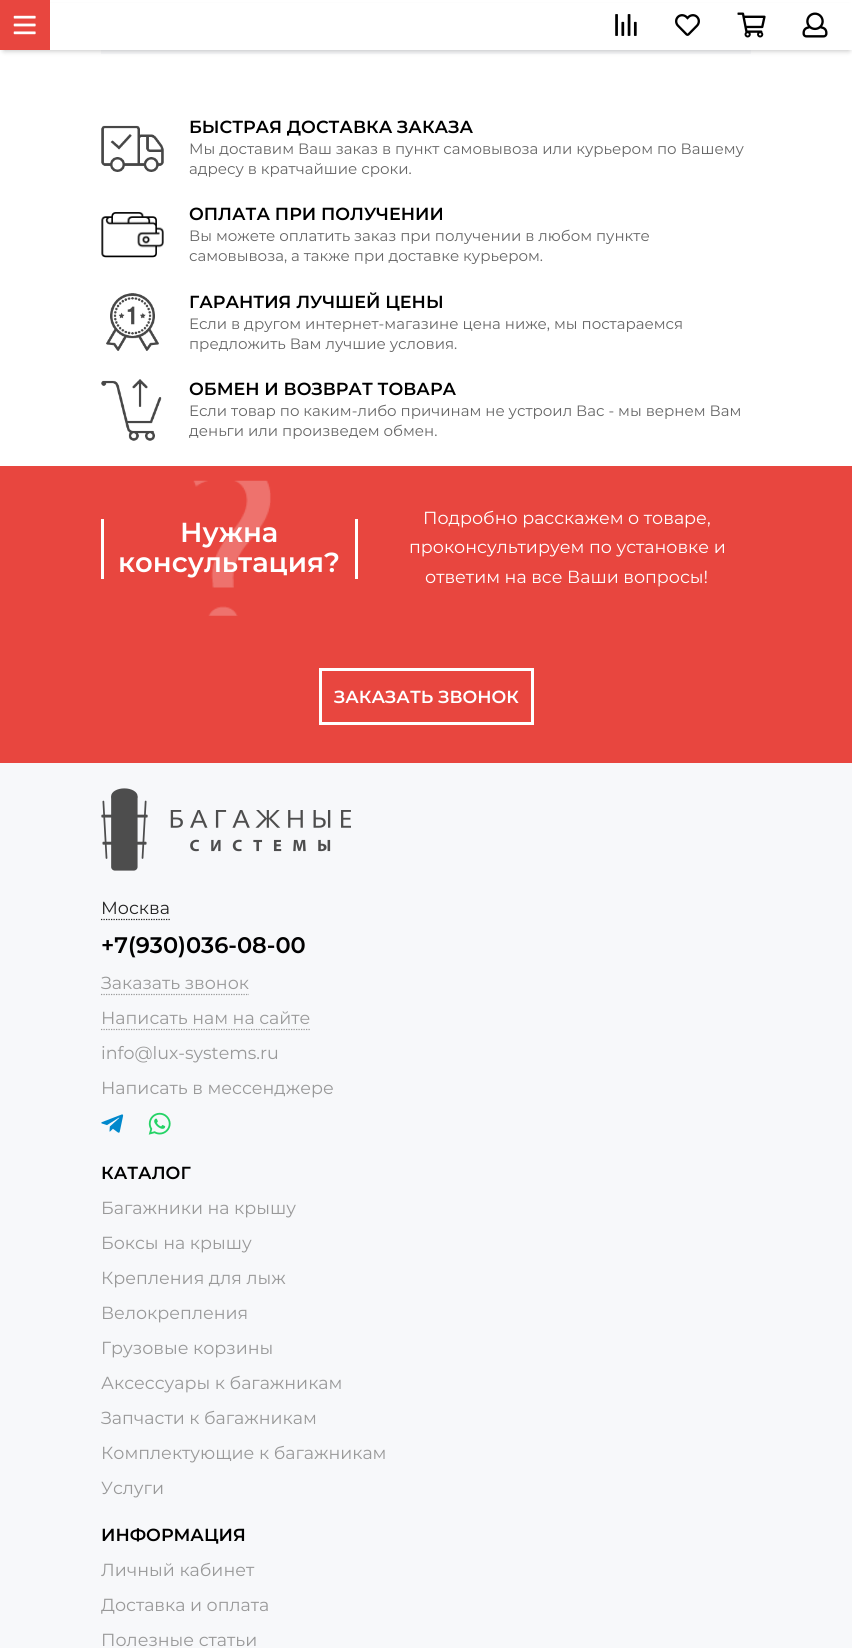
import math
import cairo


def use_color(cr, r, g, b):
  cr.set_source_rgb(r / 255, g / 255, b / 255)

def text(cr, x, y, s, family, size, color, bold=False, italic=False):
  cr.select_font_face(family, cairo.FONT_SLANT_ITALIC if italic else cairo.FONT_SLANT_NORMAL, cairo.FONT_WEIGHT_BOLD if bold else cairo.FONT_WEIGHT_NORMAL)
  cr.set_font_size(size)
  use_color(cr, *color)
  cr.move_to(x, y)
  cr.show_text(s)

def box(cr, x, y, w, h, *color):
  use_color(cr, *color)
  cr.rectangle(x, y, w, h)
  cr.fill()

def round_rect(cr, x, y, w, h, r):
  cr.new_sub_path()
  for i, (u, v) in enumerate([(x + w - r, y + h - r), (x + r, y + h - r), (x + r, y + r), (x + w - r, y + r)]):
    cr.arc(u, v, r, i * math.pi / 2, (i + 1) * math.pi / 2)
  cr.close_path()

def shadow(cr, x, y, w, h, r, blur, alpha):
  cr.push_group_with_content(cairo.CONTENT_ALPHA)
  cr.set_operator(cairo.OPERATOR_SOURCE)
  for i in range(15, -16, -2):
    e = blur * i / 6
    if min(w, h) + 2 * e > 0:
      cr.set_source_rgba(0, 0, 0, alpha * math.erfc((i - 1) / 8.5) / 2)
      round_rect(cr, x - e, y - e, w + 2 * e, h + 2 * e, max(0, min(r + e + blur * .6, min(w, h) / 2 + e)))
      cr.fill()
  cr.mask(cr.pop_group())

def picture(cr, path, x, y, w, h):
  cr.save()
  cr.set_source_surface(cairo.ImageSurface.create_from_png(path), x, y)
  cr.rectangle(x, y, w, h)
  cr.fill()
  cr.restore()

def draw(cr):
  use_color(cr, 255, 255, 255)
  cr.paint()
  box(cr, 101, 50, 650, 4, 247, 248, 250)
  use_color(cr, 0, 0, 0)
  shadow(cr, 4, 8, 845, 42, 0, 3, 0.3)
  box(cr, 50, 3, 802, 47, 255, 255, 255)
  box(cr, 0, 0, 50, 50, 232, 70, 63)
  picture(cr, "img_01.png", 13, 15, 23, 20)
  picture(cr, "img_02.png", 615, 14, 22, 22)
  picture(cr, "img_03.png", 675, 14, 25, 22)
  picture(cr, "img_04.png", 737, 12, 29, 26)
  picture(cr, "img_05.png", 802, 12, 26, 26)
  picture(cr, "img_06.png", 101, 125, 63, 47)
  picture(cr, "img_07.png", 101, 212, 63, 46)
  picture(cr, "img_08.png", 106, 293, 53, 58)
  picture(cr, "img_09.png", 101, 379, 61, 62)
  box(cr, 0, 466, 852, 297, 232, 70, 63)
  picture(cr, "img_10.png", 193, 480, 78, 136)
  box(cr, 355, 519, 3, 60, 255, 255, 255)
  box(cr, 101, 519, 3, 60, 255, 255, 255)
  cr.rectangle(320.5, 669.5, 212, 54)
  cr.set_line_width(3)
  cr.stroke()
  box(cr, 0, 763, 852, 885, 247, 248, 250)
  picture(cr, "img_11.png", 101, 788, 250, 83)
  cr.new_path()
  cr.move_to(101, 919.5)
  cr.line_to(170, 919.5)
  use_color(cr, 34, 34, 34)
  cr.set_line_width(1.2)
  cr.set_dash([1.25, 1.25])
  cr.stroke()
  cr.new_path()
  cr.move_to(101, 994.5)
  cr.line_to(249, 994.5)
  use_color(cr, 153, 153, 153)
  cr.stroke()
  cr.new_path()
  cr.move_to(101, 1029.5)
  cr.line_to(311, 1029.5)
  cr.stroke()
  picture(cr, "img_12.png", 101, 1114, 23, 19)
  picture(cr, "img_13.png", 148, 1112, 23, 23)
  text(cr, 189, 133, "БЫСТРАЯ ДОСТАВКА ЗАКАЗА", "Montserrat SemiBold", 17.5, (0, 0, 0))
  text(cr, 189, 154, "Мы доставим Ваш заказ в пункт самовывоза или курьером по Вашему", "Montserrat", 15, (102, 102, 102))
  text(cr, 189, 174, "адресу в кратчайшие сроки.", "Montserrat", 15, (102, 102, 102))
  text(cr, 189, 220, "ОПЛАТА ПРИ ПОЛУЧЕНИИ", "Montserrat SemiBold", 17.5, (0, 0, 0))
  text(cr, 189, 241, "Вы можете оплатить заказ при получении в любом пункте", "Montserrat", 15, (102, 102, 102))
  text(cr, 189, 261, "самовывоза, а также при доставке курьером.", "Montserrat", 15, (102, 102, 102))
  text(cr, 189, 308, "ГАРАНТИЯ ЛУЧШЕЙ ЦЕНЫ", "Montserrat SemiBold", 17.5, (0, 0, 0))
  text(cr, 189, 329, "Если в другом интернет-магазине цена ниже, мы постараемся", "Montserrat", 15, (102, 102, 102))
  text(cr, 189, 349, "предложить Вам лучшие условия.", "Montserrat", 15, (102, 102, 102))
  text(cr, 189, 395, "ОБМЕН И ВОЗВРАТ ТОВАРА", "Montserrat SemiBold", 17.5, (0, 0, 0))
  text(cr, 189, 416, "Если товар по каким-либо причинам не устроил Вас - мы вернем Вам", "Montserrat", 15, (102, 102, 102))
  text(cr, 189, 436, "деньги или произведем обмен.", "Montserrat", 15, (102, 102, 102))
  text(cr, 180, 542, "Нужна", "Montserrat SemiBold", 27.5, (255, 255, 255))
  text(cr, 118, 572, "консультация?", "Montserrat SemiBold", 27.5, (255, 255, 255))
  text(cr, 423, 524, "Подробно расскажем о товаре,", "Montserrat", 17.5, (255, 255, 255))
  text(cr, 409, 553, "проконсультируем по установке и", "Montserrat", 17.5, (255, 255, 255))
  text(cr, 425, 583, "ответим на все Ваши вопросы!", "Montserrat", 17.5, (255, 255, 255))
  text(cr, 334, 703, "ЗАКАЗАТЬ ЗВОНОК", "Montserrat SemiBold", 17.5, (255, 255, 255))
  text(cr, 101, 914, "Москва", "Montserrat", 17.5, (34, 34, 34))
  text(cr, 101, 953, "+7(930)036-08-00", "Montserrat SemiBold", 22.5, (0, 0, 0))
  text(cr, 101, 989, "Заказать звонок", "Montserrat", 17.5, (153, 153, 153))
  text(cr, 101, 1024, "Написать нам на сайте", "Montserrat", 17.5, (153, 153, 153))
  text(cr, 101, 1059, "info@lux-systems.ru", "Montserrat", 17.5, (153, 153, 153))
  text(cr, 101, 1094, "Написать в мессенджере", "Montserrat", 17.5, (153, 153, 153))
  text(cr, 101, 1179, "КАТАЛОГ", "Montserrat SemiBold", 17.5, (0, 0, 0))
  text(cr, 101, 1214, "Багажники на крышу", "Montserrat", 17.5, (153, 153, 153))
  text(cr, 101, 1249, "Боксы на крышу", "Montserrat", 17.5, (153, 153, 153))
  text(cr, 101, 1284, "Крепления для лыж", "Montserrat", 17.5, (153, 153, 153))
  text(cr, 101, 1319, "Велокрепления", "Montserrat", 17.5, (153, 153, 153))
  text(cr, 101, 1354, "Грузовые корзины", "Montserrat", 17.5, (153, 153, 153))
  text(cr, 101, 1389, "Аксессуары к багажникам", "Montserrat", 17.5, (153, 153, 153))
  text(cr, 101, 1424, "Запчасти к багажникам", "Montserrat", 17.5, (153, 153, 153))
  text(cr, 101, 1459, "Комплектующие к багажникам", "Montserrat", 17.5, (153, 153, 153))
  text(cr, 101, 1494, "Услуги", "Montserrat", 17.5, (153, 153, 153))
  text(cr, 101, 1541, "ИНФОРМАЦИЯ", "Montserrat SemiBold", 17.5, (0, 0, 0))
  text(cr, 101, 1576, "Личный кабинет", "Montserrat", 17.5, (153, 153, 153))
  text(cr, 101, 1611, "Доставка и оплата", "Montserrat", 17.5, (153, 153, 153))
  text(cr, 101, 1646, "Полезные статьи", "Montserrat", 17.5, (153, 153, 153))


surface = cairo.ImageSurface(cairo.FORMAT_RGB24, 852, 1648)
cr = cairo.Context(surface)
options = cairo.FontOptions()
options.set_hint_metrics(cairo.HINT_METRICS_OFF)
options.set_hint_style(cairo.HINT_STYLE_NONE)
cr.set_font_options(options)
cr.set_miter_limit(4)
draw(cr)
surface.write_to_png("out.png")
